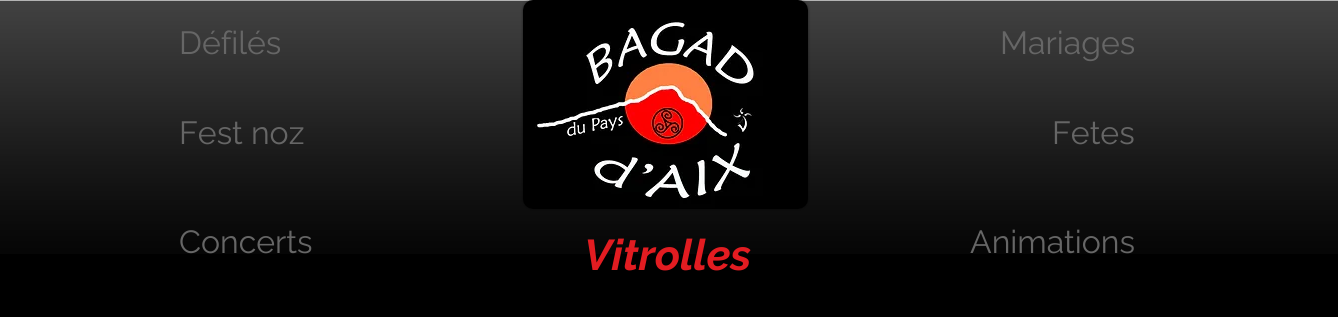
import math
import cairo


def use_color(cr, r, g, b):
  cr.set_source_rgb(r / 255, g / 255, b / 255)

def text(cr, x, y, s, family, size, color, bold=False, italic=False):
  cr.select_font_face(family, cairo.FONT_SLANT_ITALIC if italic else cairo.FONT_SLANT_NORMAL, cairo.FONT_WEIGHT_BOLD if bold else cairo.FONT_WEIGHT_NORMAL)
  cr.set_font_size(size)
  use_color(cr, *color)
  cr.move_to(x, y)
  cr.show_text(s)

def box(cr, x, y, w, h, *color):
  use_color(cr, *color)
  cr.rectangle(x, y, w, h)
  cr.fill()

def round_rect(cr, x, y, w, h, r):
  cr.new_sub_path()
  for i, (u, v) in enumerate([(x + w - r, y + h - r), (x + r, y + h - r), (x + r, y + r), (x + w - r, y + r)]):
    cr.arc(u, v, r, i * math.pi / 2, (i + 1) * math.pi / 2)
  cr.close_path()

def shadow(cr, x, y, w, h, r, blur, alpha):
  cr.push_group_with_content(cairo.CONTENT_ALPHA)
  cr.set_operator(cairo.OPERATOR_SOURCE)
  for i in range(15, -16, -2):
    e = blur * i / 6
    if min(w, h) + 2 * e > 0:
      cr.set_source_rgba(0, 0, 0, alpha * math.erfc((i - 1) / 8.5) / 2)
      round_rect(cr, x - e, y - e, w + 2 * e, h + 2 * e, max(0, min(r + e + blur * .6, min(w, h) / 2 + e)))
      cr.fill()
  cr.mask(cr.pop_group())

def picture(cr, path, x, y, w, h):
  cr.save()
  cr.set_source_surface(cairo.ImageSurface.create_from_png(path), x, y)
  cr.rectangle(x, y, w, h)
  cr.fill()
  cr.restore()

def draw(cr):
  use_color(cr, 0, 0, 0)
  cr.paint()
  picture(cr, "img_01.png", 0, 1, 1338, 253)
  box(cr, 0, 0, 1338, 1, 179, 179, 179)
  use_color(cr, 0, 0, 0)
  shadow(cr, 523, 0, 285, 209, 10, 1.5, 0.5)
  picture(cr, "img_02.png", 523, 0, 285, 209)
  text(cr, 179, 54, "Défilés", "Raleway", 32, (102, 102, 102))
  text(cr, 1000, 54, "Mariages", "Raleway", 32, (102, 102, 102))
  text(cr, 179, 144, "Fest noz", "Raleway", 32, (102, 102, 102))
  text(cr, 1052, 144, "Fetes", "Raleway", 32, (102, 102, 102))
  text(cr, 179, 253, "Concerts", "Raleway", 32, (102, 102, 102))
  text(cr, 584, 270, "Vitrolles", "Raleway", 43, (226, 28, 33), bold=True, italic=True)
  text(cr, 970, 253, "Animations", "Raleway", 32, (102, 102, 102))


surface = cairo.ImageSurface(cairo.FORMAT_RGB24, 1338, 317)
cr = cairo.Context(surface)
options = cairo.FontOptions()
options.set_hint_metrics(cairo.HINT_METRICS_OFF)
options.set_hint_style(cairo.HINT_STYLE_NONE)
cr.set_font_options(options)
cr.set_miter_limit(4)
draw(cr)
surface.write_to_png("out.png")
